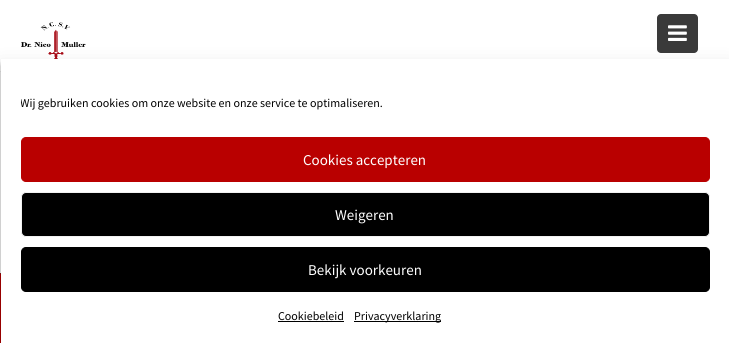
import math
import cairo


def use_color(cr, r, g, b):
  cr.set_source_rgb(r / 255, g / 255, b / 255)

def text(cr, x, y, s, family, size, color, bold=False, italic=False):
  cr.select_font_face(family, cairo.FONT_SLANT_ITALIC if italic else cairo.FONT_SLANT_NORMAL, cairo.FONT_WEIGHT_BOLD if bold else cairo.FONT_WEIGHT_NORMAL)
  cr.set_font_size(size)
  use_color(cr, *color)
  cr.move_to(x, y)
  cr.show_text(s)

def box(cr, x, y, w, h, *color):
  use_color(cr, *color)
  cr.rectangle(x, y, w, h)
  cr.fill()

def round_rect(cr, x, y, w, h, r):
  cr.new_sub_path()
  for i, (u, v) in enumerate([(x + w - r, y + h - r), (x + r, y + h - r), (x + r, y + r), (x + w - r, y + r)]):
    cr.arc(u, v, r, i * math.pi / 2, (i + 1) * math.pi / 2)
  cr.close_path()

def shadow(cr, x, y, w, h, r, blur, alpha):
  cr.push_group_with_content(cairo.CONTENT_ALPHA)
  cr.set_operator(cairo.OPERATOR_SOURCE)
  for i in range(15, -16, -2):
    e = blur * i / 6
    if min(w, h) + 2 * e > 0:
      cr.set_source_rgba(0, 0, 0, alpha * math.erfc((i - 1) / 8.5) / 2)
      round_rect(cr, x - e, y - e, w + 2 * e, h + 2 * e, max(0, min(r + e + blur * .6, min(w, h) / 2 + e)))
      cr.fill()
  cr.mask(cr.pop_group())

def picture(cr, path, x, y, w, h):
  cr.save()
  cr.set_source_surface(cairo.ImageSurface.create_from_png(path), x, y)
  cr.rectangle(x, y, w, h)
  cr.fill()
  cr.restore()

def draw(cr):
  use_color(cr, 255, 255, 255)
  cr.paint()
  use_color(cr, 230, 230, 230)
  cr.new_path()
  cr.move_to(729, 72)
  cr.line_to(0, 72)
  cr.line_to(1, 71)
  cr.line_to(728, 71)
  cr.close_path()
  cr.fill()
  picture(cr, "img_01.png", 21, 22, 65, 37)
  use_color(cr, 58, 58, 58)
  round_rect(cr, 657, 14, 41, 39, 4)
  cr.fill()
  picture(cr, "img_02.png", 668, 25, 19, 16)
  box(cr, 0, 274, 1, 69, 185, 0, 0)
  box(cr, 0, 273, 1, 1, 137, 26, 25)
  use_color(cr, 0, 0, 0)
  shadow(cr, 1, 65, 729, 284, 0, 3, 0.23)
  shadow(cr, 1, 69, 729, 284, 0, 10, 0.19)
  box(cr, 1, 59, 728, 284, 255, 255, 255)
  use_color(cr, 185, 0, 0)
  round_rect(cr, 21.5, 137.5, 688, 44, 4.5)
  cr.fill_preserve()
  cr.set_line_width(1)
  cr.stroke()
  use_color(cr, 0, 0, 0)
  round_rect(cr, 21.5, 192.5, 688, 44, 4.5)
  cr.fill_preserve()
  use_color(cr, 241, 241, 241)
  cr.stroke()
  use_color(cr, 0, 0, 0)
  round_rect(cr, 21.5, 247.5, 688, 44, 4.5)
  cr.fill_preserve()
  cr.stroke()
  box(cr, 278, 321, 66, 1, 0, 0, 0)
  box(cr, 354, 321, 87, 1, 0, 0, 0)
  cr.save()
  cr.rectangle(21, 94, 689, 23)
  cr.clip()
  text(cr, 20, 107, "Wij gebruiken cookies om onze website en onze service te optimaliseren.", "Source Sans Pro", 12, (0, 0, 0))
  cr.restore()
  text(cr, 303, 165, "Cookies accepteren", "Source Sans Pro", 15, (255, 255, 255))
  text(cr, 335, 220, "Weigeren", "Source Sans Pro", 15, (255, 255, 255))
  text(cr, 308, 275, "Bekijk voorkeuren", "Source Sans Pro", 15, (255, 255, 255))
  text(cr, 278, 320, "Cookiebeleid", "Source Sans Pro", 12, (0, 0, 0))
  text(cr, 354, 320, "Privacyverklaring", "Source Sans Pro", 12, (0, 0, 0))


surface = cairo.ImageSurface(cairo.FORMAT_RGB24, 729, 343)
cr = cairo.Context(surface)
options = cairo.FontOptions()
options.set_hint_metrics(cairo.HINT_METRICS_OFF)
options.set_hint_style(cairo.HINT_STYLE_NONE)
cr.set_font_options(options)
cr.set_miter_limit(4)
draw(cr)
surface.write_to_png("out.png")
